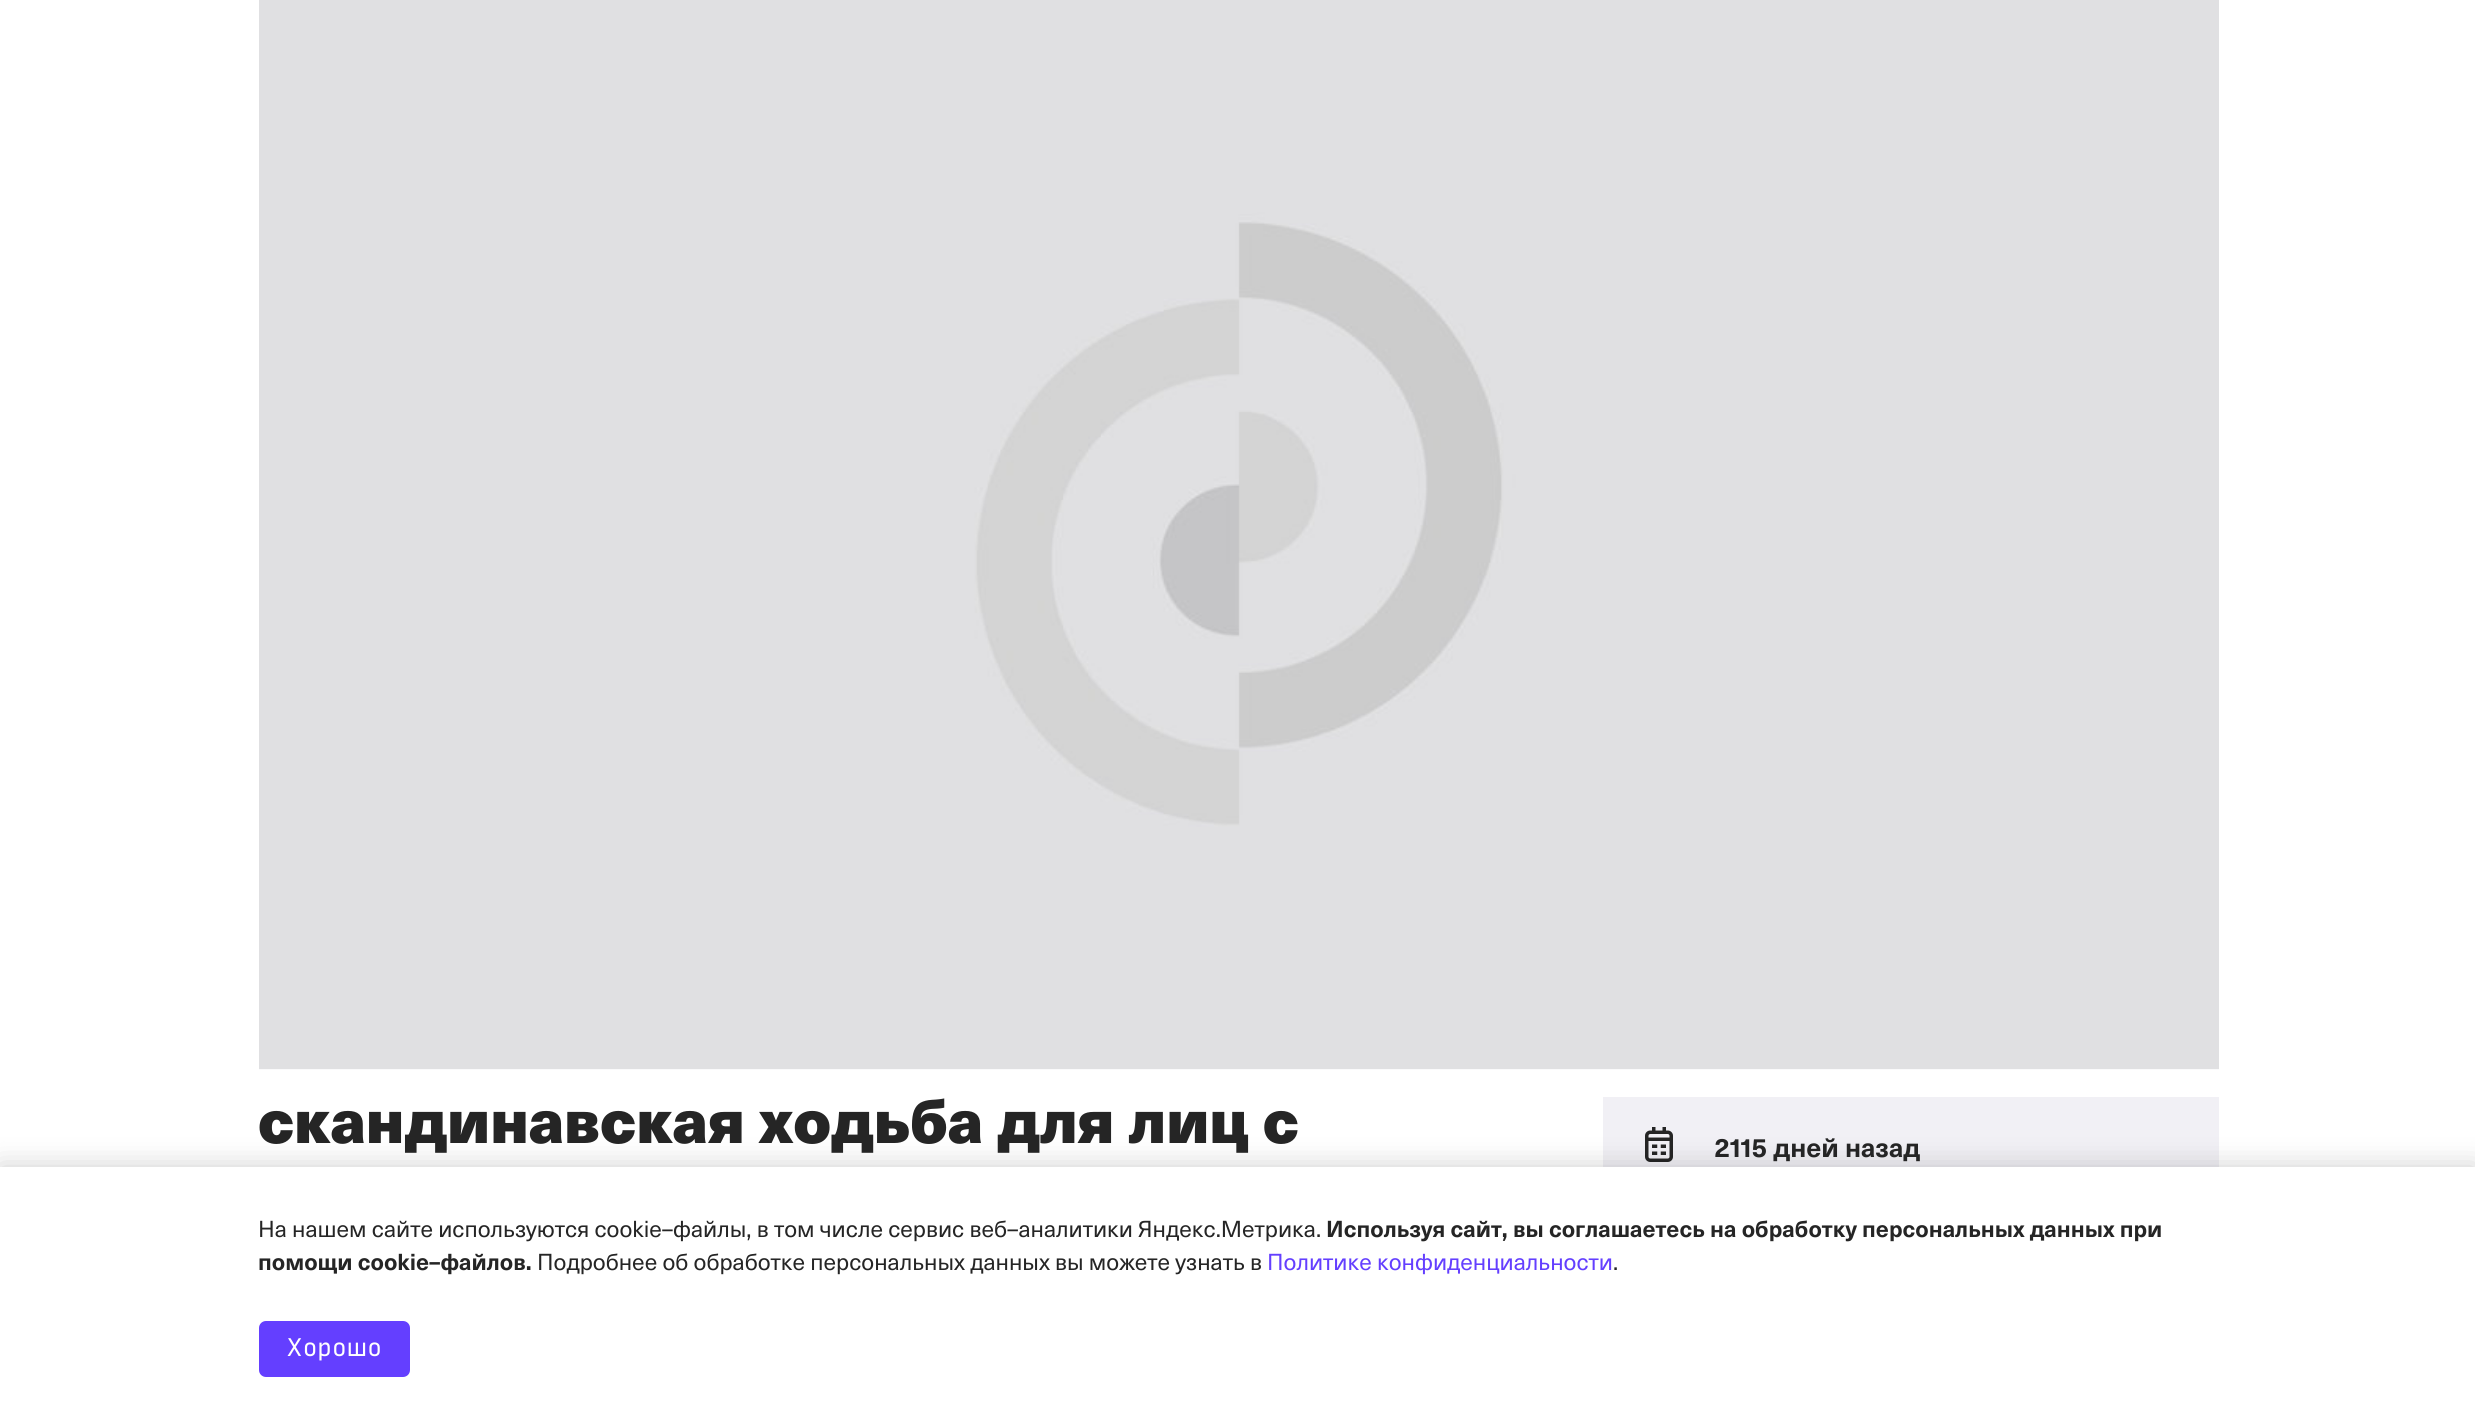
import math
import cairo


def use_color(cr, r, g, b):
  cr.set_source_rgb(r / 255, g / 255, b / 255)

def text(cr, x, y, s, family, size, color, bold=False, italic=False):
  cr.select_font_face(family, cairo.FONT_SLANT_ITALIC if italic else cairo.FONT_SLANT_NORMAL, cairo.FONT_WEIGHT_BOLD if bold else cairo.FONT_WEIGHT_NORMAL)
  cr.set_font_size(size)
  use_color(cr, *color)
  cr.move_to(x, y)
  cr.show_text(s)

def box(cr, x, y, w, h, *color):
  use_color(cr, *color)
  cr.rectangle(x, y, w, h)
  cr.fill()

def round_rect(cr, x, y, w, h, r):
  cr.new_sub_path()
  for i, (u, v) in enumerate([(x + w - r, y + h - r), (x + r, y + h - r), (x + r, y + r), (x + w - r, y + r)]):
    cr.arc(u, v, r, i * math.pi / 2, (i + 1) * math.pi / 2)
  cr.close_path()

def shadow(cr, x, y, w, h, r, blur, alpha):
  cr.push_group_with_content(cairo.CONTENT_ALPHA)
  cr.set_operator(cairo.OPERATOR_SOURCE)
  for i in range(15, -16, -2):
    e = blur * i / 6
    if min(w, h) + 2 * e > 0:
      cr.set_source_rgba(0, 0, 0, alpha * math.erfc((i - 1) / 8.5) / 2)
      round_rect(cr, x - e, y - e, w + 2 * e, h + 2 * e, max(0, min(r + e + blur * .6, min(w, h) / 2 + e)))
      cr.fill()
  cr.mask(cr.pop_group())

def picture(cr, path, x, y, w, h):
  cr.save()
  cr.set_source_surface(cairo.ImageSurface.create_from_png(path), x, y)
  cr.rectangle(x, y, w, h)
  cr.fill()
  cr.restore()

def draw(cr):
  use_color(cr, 255, 255, 255)
  cr.paint()
  picture(cr, "img_01.png", 259, 0, 1960, 1070)
  box(cr, 1603, 1097, 616, 70, 241, 240, 245)
  picture(cr, "img_02.png", 1645, 1127, 28, 35)
  use_color(cr, 0, 0, 0)
  shadow(cr, 0, 1167, 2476, 238, 0, 14, 0.2)
  box(cr, 0, 1167, 2475, 238, 255, 255, 255)
  use_color(cr, 100, 63, 255)
  round_rect(cr, 259, 1321, 151, 56, 7)
  cr.fill()
  text(cr, 258, 1143, "скандинавская ходьба для лиц с", "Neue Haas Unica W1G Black", 61.25, (37, 37, 37))
  text(cr, 1714, 1157, "2115 дней назад", "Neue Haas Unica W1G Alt", 26.25, (37, 37, 37), bold=True)
  text(cr, 258, 1237, "На нашем сайте используются cookie–файлы, в том числе сервис веб–аналитики Яндекс.Метрика.", "Neue Haas Unica W1G", 22.75, (37, 37, 37))
  text(cr, 1326, 1237, "Используя сайт, вы соглашаетесь на обработку персональных данных при", "Neue Haas Unica W1G", 22.75, (37, 37, 37), bold=True)
  text(cr, 258, 1270, "помощи cookie–файлов.", "Neue Haas Unica W1G", 22.75, (37, 37, 37), bold=True)
  text(cr, 537, 1270, "Подробнее об обработке персональных данных вы можете узнать в", "Neue Haas Unica W1G", 22.75, (37, 37, 37))
  text(cr, 1267, 1270, "Политике конфиденциальности", "Neue Haas Unica W1G", 22.75, (100, 63, 255))
  text(cr, 1613, 1270, ".", "Neue Haas Unica W1G", 22.75, (37, 37, 37))
  text(cr, 286, 1356, "Хорошо", "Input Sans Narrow", 24.5, (255, 255, 255))


surface = cairo.ImageSurface(cairo.FORMAT_RGB24, 2475, 1405)
cr = cairo.Context(surface)
options = cairo.FontOptions()
options.set_hint_metrics(cairo.HINT_METRICS_OFF)
options.set_hint_style(cairo.HINT_STYLE_NONE)
cr.set_font_options(options)
cr.set_miter_limit(4)
draw(cr)
surface.write_to_png("out.png")
